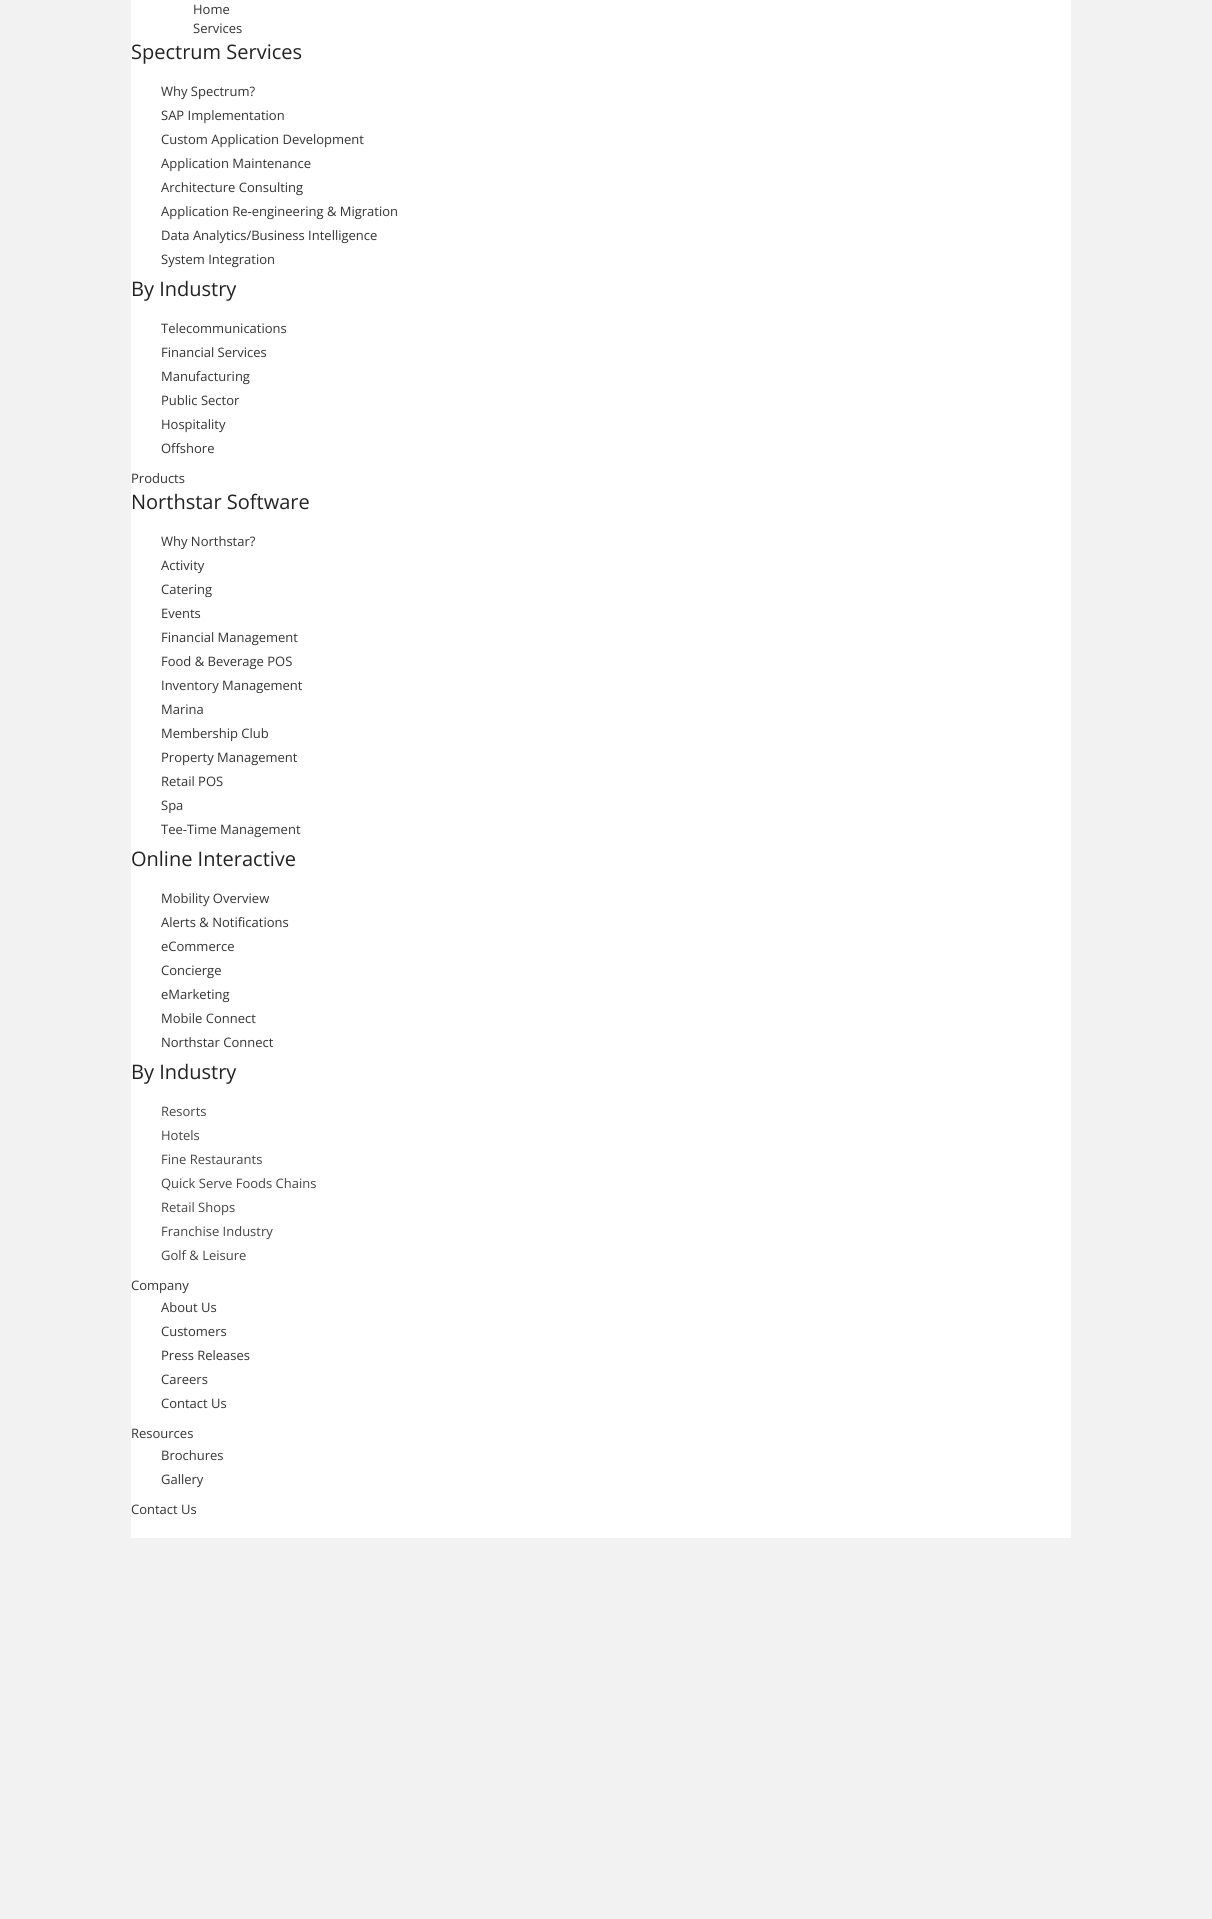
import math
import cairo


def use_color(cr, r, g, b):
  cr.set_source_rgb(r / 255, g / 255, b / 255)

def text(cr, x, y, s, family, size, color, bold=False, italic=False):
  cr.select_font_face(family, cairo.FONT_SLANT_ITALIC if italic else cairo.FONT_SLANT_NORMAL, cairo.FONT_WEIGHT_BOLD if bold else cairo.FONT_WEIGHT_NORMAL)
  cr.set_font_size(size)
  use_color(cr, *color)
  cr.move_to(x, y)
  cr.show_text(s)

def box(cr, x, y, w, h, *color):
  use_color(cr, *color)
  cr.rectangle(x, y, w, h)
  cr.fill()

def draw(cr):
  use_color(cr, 242, 242, 242)
  cr.paint()
  box(cr, 131, 0, 940, 1538, 255, 255, 255)
  text(cr, 193, 14, "Home", "Open Sans", 13, (51, 51, 51))
  text(cr, 193, 33, "Services", "Open Sans", 13, (51, 51, 51))
  text(cr, 131, 59, "Spectrum Services", "Open Sans", 20, (34, 34, 34))
  text(cr, 161, 96, "Why Spectrum?", "Open Sans", 13, (51, 51, 51))
  text(cr, 161, 120, "SAP Implementation", "Open Sans", 13, (51, 51, 51))
  text(cr, 161, 144, "Custom Application Development", "Open Sans", 13, (51, 51, 51))
  text(cr, 161, 168, "Application Maintenance", "Open Sans", 13, (51, 51, 51))
  text(cr, 161, 192, "Architecture Consulting", "Open Sans", 13, (51, 51, 51))
  text(cr, 161, 216, "Application Re-engineering & Migration", "Open Sans", 13, (51, 51, 51))
  text(cr, 161, 240, "Data Analytics/Business Intelligence", "Open Sans", 13, (51, 51, 51))
  text(cr, 161, 264, "System Integration", "Open Sans", 13, (51, 51, 51))
  text(cr, 131, 296, "By Industry", "Open Sans", 20, (34, 34, 34))
  text(cr, 161, 333, "Telecommunications", "Open Sans", 13, (51, 51, 51))
  text(cr, 161, 357, "Financial Services", "Open Sans", 13, (51, 51, 51))
  text(cr, 161, 381, "Manufacturing", "Open Sans", 13, (51, 51, 51))
  text(cr, 161, 405, "Public Sector", "Open Sans", 13, (51, 51, 51))
  text(cr, 161, 429, "Hospitality", "Open Sans", 13, (51, 51, 51))
  text(cr, 161, 453, "Offshore", "Open Sans", 13, (51, 51, 51))
  text(cr, 131, 483, "Products", "Open Sans", 13, (51, 51, 51))
  text(cr, 131, 509, "Northstar Software", "Open Sans", 20, (34, 34, 34))
  text(cr, 161, 546, "Why Northstar?", "Open Sans", 13, (51, 51, 51))
  text(cr, 161, 570, "Activity", "Open Sans", 13, (51, 51, 51))
  text(cr, 161, 594, "Catering", "Open Sans", 13, (51, 51, 51))
  text(cr, 161, 618, "Events", "Open Sans", 13, (51, 51, 51))
  text(cr, 161, 642, "Financial Management", "Open Sans", 13, (51, 51, 51))
  text(cr, 161, 666, "Food & Beverage POS", "Open Sans", 13, (51, 51, 51))
  text(cr, 161, 690, "Inventory Management", "Open Sans", 13, (51, 51, 51))
  text(cr, 161, 714, "Marina", "Open Sans", 13, (51, 51, 51))
  text(cr, 161, 738, "Membership Club", "Open Sans", 13, (51, 51, 51))
  text(cr, 161, 762, "Property Management", "Open Sans", 13, (51, 51, 51))
  text(cr, 161, 786, "Retail POS", "Open Sans", 13, (51, 51, 51))
  text(cr, 161, 810, "Spa", "Open Sans", 13, (51, 51, 51))
  text(cr, 161, 834, "Tee-Time Management", "Open Sans", 13, (51, 51, 51))
  text(cr, 131, 866, "Online Interactive", "Open Sans", 20, (34, 34, 34))
  text(cr, 161, 903, "Mobility Overview", "Open Sans", 13, (51, 51, 51))
  text(cr, 161, 927, "Alerts & Notifications", "Open Sans", 13, (51, 51, 51))
  text(cr, 161, 951, "eCommerce", "Open Sans", 13, (51, 51, 51))
  text(cr, 161, 975, "Concierge", "Open Sans", 13, (51, 51, 51))
  text(cr, 161, 999, "eMarketing", "Open Sans", 13, (51, 51, 51))
  text(cr, 161, 1023, "Mobile Connect", "Open Sans", 13, (51, 51, 51))
  text(cr, 161, 1047, "Northstar Connect", "Open Sans", 13, (51, 51, 51))
  text(cr, 131, 1079, "By Industry", "Open Sans", 20, (34, 34, 34))
  text(cr, 161, 1116, "Resorts", "Open Sans", 13, (68, 68, 68))
  text(cr, 161, 1140, "Hotels", "Open Sans", 13, (68, 68, 68))
  text(cr, 161, 1164, "Fine Restaurants", "Open Sans", 13, (68, 68, 68))
  text(cr, 161, 1188, "Quick Serve Foods Chains", "Open Sans", 13, (68, 68, 68))
  text(cr, 161, 1212, "Retail Shops", "Open Sans", 13, (68, 68, 68))
  text(cr, 161, 1236, "Franchise Industry", "Open Sans", 13, (68, 68, 68))
  text(cr, 161, 1260, "Golf & Leisure", "Open Sans", 13, (68, 68, 68))
  text(cr, 131, 1290, "Company", "Open Sans", 13, (51, 51, 51))
  text(cr, 161, 1312, "About Us", "Open Sans", 13, (51, 51, 51))
  text(cr, 161, 1336, "Customers", "Open Sans", 13, (51, 51, 51))
  text(cr, 161, 1360, "Press Releases", "Open Sans", 13, (51, 51, 51))
  text(cr, 161, 1384, "Careers", "Open Sans", 13, (51, 51, 51))
  text(cr, 161, 1408, "Contact Us", "Open Sans", 13, (51, 51, 51))
  text(cr, 131, 1438, "Resources", "Open Sans", 13, (51, 51, 51))
  text(cr, 161, 1460, "Brochures", "Open Sans", 13, (51, 51, 51))
  text(cr, 161, 1484, "Gallery", "Open Sans", 13, (51, 51, 51))
  text(cr, 131, 1514, "Contact Us", "Open Sans", 13, (51, 51, 51))


surface = cairo.ImageSurface(cairo.FORMAT_RGB24, 1212, 1919)
cr = cairo.Context(surface)
options = cairo.FontOptions()
options.set_hint_metrics(cairo.HINT_METRICS_OFF)
options.set_hint_style(cairo.HINT_STYLE_NONE)
cr.set_font_options(options)
cr.set_miter_limit(4)
draw(cr)
surface.write_to_png("out.png")
